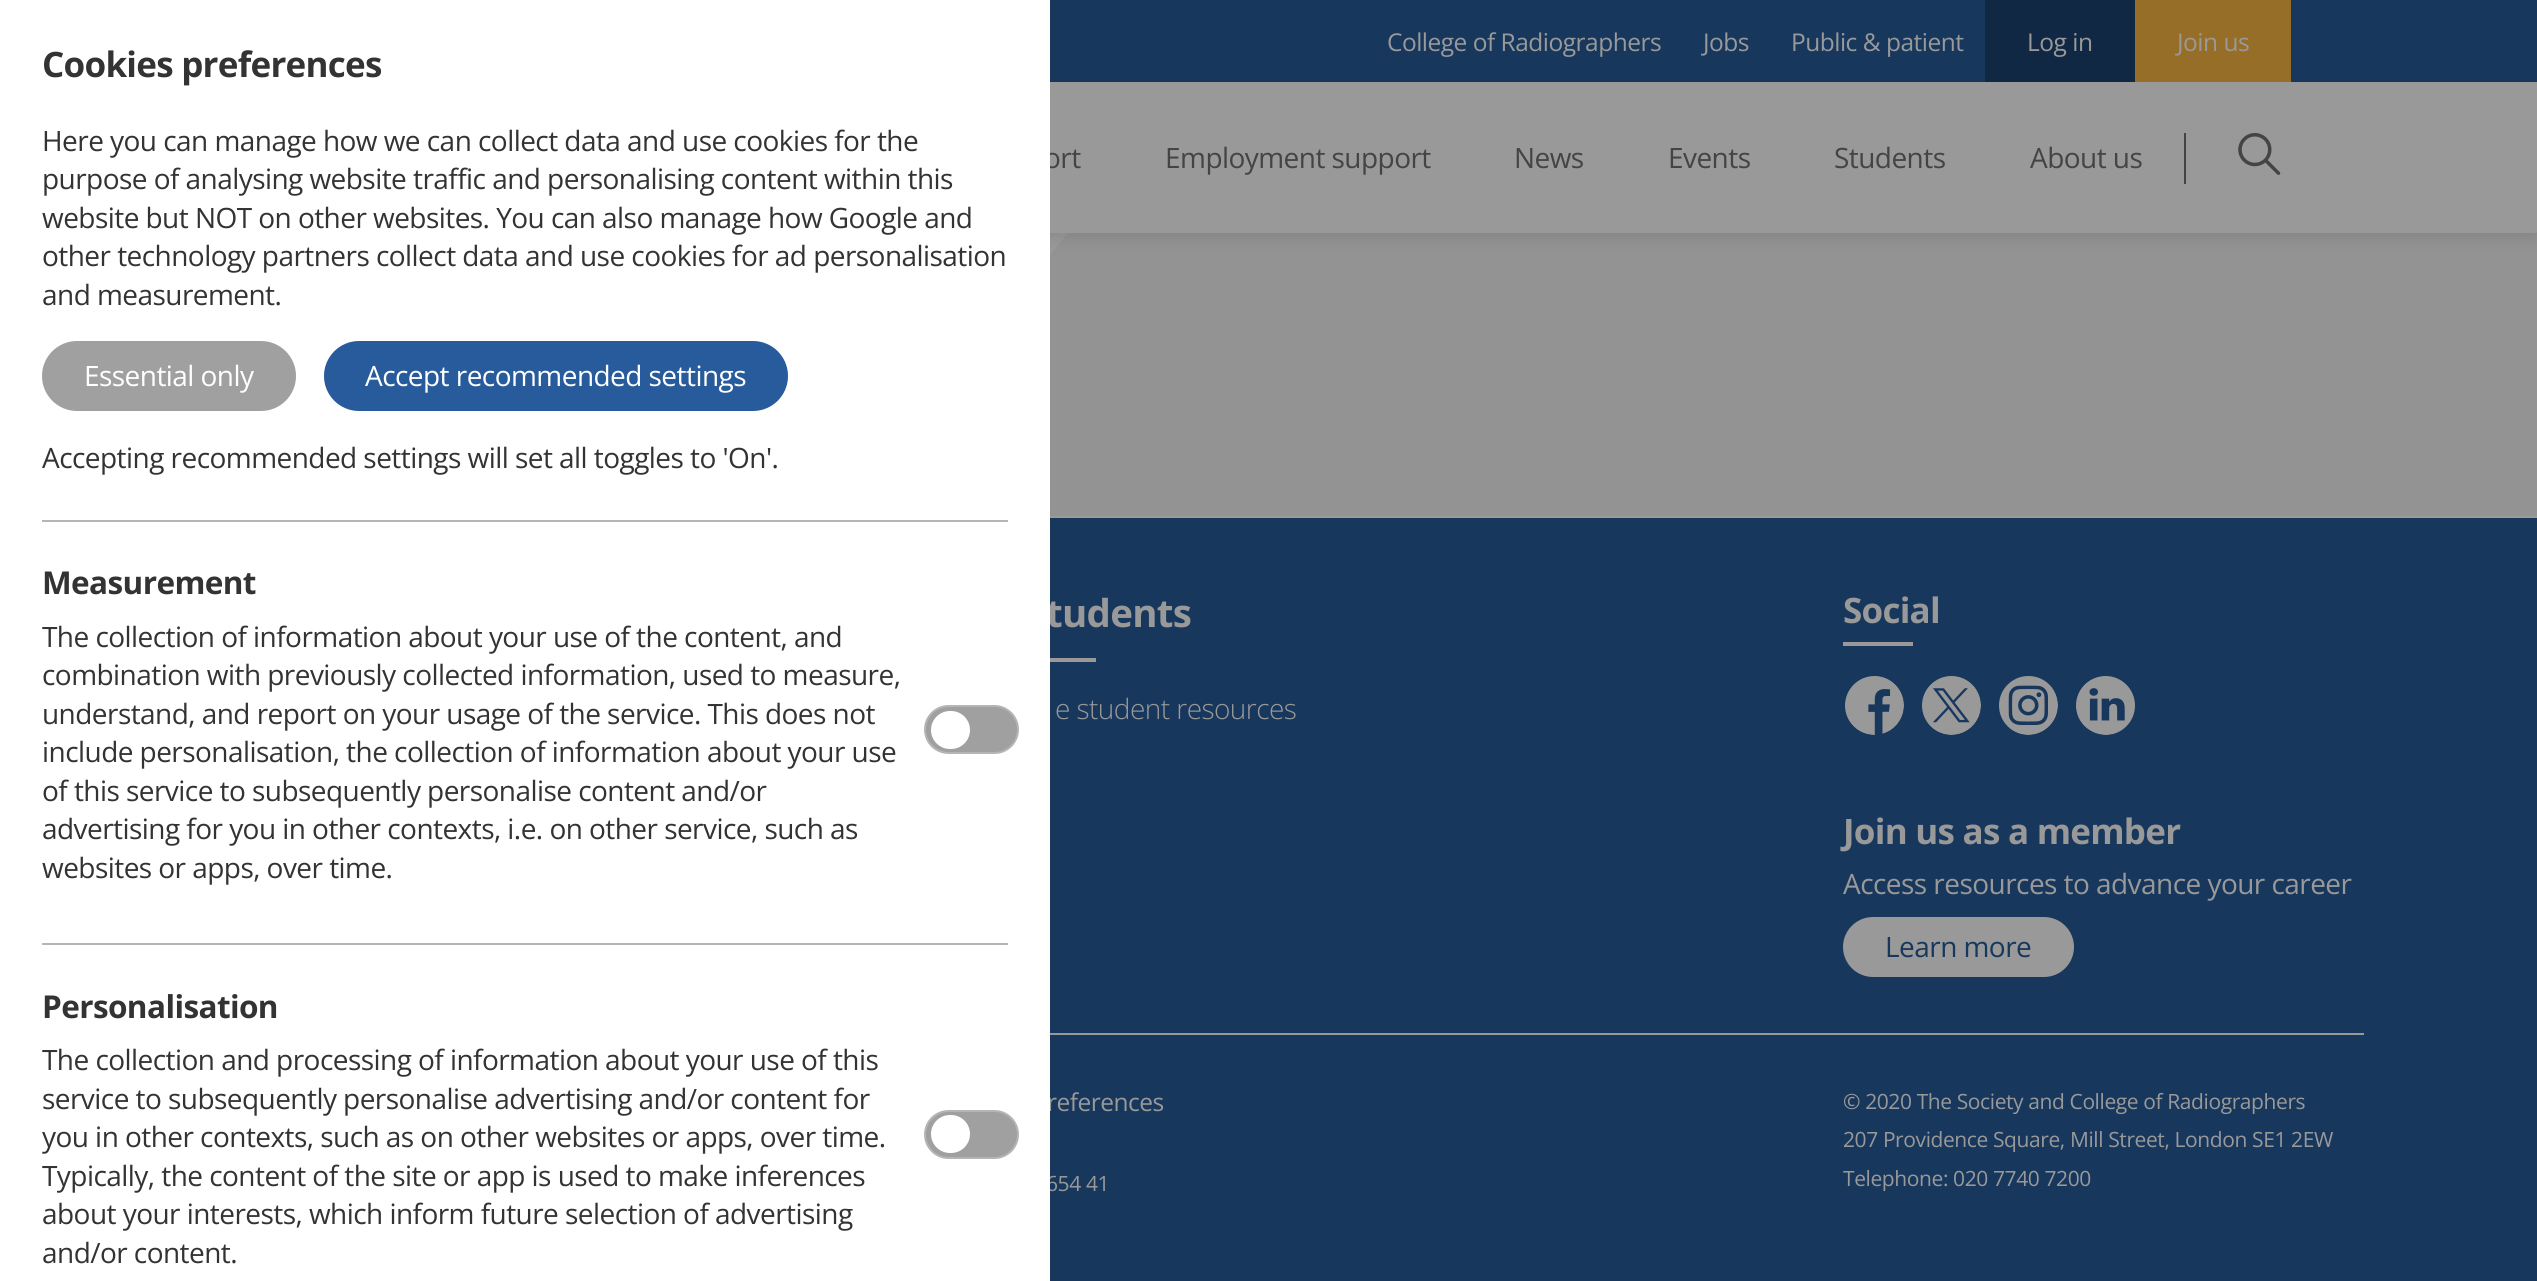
import math
import cairo


def use_color(cr, r, g, b):
  cr.set_source_rgb(r / 255, g / 255, b / 255)

def spaced_text(cr, x, y, s, letter, word):
  cr.move_to(x, y)
  for ch in s:
    cr.show_text(ch)
    cr.rel_move_to(letter + word * (ch == ' '), 0)

def box(cr, x, y, w, h, *color):
  use_color(cr, *color)
  cr.rectangle(x, y, w, h)
  cr.fill()

def round_rect(cr, x, y, w, h, r):
  cr.new_sub_path()
  for i, (u, v) in enumerate([(x + w - r, y + h - r), (x + r, y + h - r), (x + r, y + r), (x + w - r, y + r)]):
    cr.arc(u, v, r, i * math.pi / 2, (i + 1) * math.pi / 2)
  cr.close_path()

def shadow(cr, x, y, w, h, r, blur, alpha):
  cr.push_group_with_content(cairo.CONTENT_ALPHA)
  cr.set_operator(cairo.OPERATOR_SOURCE)
  for i in range(15, -16, -2):
    e = blur * i / 6
    if min(w, h) + 2 * e > 0:
      cr.set_source_rgba(0, 0, 0, alpha * math.erfc((i - 1) / 8.5) / 2)
      round_rect(cr, x - e, y - e, w + 2 * e, h + 2 * e, max(0, min(r + e + blur * .6, min(w, h) / 2 + e)))
      cr.fill()
  cr.mask(cr.pop_group())

def picture(cr, path, x, y, w, h):
  cr.save()
  cr.set_source_surface(cairo.ImageSurface.create_from_png(path), x, y)
  cr.rectangle(x, y, w, h)
  cr.fill()
  cr.restore()

def draw(cr):
  use_color(cr, 153, 153, 153)
  cr.paint()
  cr.save()
  cr.rectangle(788, 0, 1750, 516)
  cr.clip()
  use_color(cr, 147, 147, 147)
  cr.new_path()
  cr.move_to(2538, -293)
  cr.curve_to(2453, -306, 2366, -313, 2278, -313)
  cr.curve_to(1455, -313, 788, 274, 788, 998)
  cr.curve_to(788, 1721, 1455, 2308, 2278, 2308)
  cr.curve_to(2366, 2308, 2453, 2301, 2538, 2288)
  cr.close_path()
  cr.fill()
  cr.restore()
  box(cr, 1068, 82, 1469, 151, 153, 153, 153)
  cr.save()
  cr.set_fill_rule(cairo.FILL_RULE_EVEN_ODD)
  cr.new_path()
  cr.move_to(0, 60)
  cr.line_to(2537, 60)
  cr.line_to(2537, 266)
  cr.line_to(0, 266)
  cr.close_path()
  cr.move_to(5, 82)
  cr.line_to(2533, 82)
  cr.curve_to(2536, 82, 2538, 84, 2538, 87)
  cr.line_to(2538, 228)
  cr.curve_to(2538, 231, 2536, 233, 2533, 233)
  cr.line_to(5, 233)
  cr.curve_to(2, 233, 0, 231, 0, 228)
  cr.line_to(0, 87)
  cr.curve_to(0, 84, 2, 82, 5, 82)
  cr.close_path()
  cr.clip()
  use_color(cr, 0, 0, 0)
  shadow(cr, 0, 88, 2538, 150, 5, 9, 0.1)
  cr.restore()
  box(cr, 1050, 0, 1487, 82, 23, 55, 93)
  box(cr, 1985, 0, 150, 82, 17, 40, 68)
  box(cr, 2135, 0, 156, 82, 150, 110, 40)
  box(cr, 2184, 133, 2, 51, 68, 68, 68)
  picture(cr, "img_01.png", 2238, 133, 43, 42)
  box(cr, 1050, 518, 1487, 763, 23, 55, 93)
  box(cr, 1050, 658, 46, 4, 153, 153, 153)
  box(cr, 1843, 642, 70, 4, 153, 153, 153)
  picture(cr, "img_02.png", 1845, 676, 59, 59)
  picture(cr, "img_03.png", 1922, 676, 59, 59)
  picture(cr, "img_04.png", 1999, 676, 59, 59)
  picture(cr, "img_05.png", 2076, 676, 59, 59)
  round_rect(cr, 1843, 917, 231, 60, 30)
  cr.fill()
  box(cr, 1050, 1033, 1314, 2, 153, 153, 153)
  cr.select_font_face("Open Sans")
  cr.set_font_size(24.5)
  spaced_text(cr, 1387, 51, "College of Radiographers", -0.5, 0)
  spaced_text(cr, 1703, 51, "Jobs", -0.5, 0)
  spaced_text(cr, 1791, 51, "Public & patient", -0.5, 0)
  spaced_text(cr, 2027, 51, "Log in", -0.5, 0)
  spaced_text(cr, 2177, 51, "Join us", -0.5, 0)
  cr.set_font_size(28)
  use_color(cr, 68, 68, 68)
  spaced_text(cr, 1044, 168, "ort", -0.55, 0)
  spaced_text(cr, 1165, 168, "Employment support", -0.55, 0)
  spaced_text(cr, 1514, 168, "News", -0.55, 0)
  spaced_text(cr, 1668, 168, "Events", -0.55, 0)
  spaced_text(cr, 1834, 168, "Students", -0.55, 0)
  spaced_text(cr, 2030, 168, "About us", -0.55, 0)
  cr.select_font_face("Open Sans", cairo.FONT_SLANT_NORMAL, cairo.FONT_WEIGHT_BOLD)
  cr.set_font_size(38.5)
  use_color(cr, 153, 153, 153)
  spaced_text(cr, 1046, 627, "tudents", -0.75, 0)
  cr.select_font_face("Open Sans Light")
  cr.set_font_size(28)
  spaced_text(cr, 1055, 719, "e student resources", -0.55, 0)
  cr.select_font_face("Open Sans", cairo.FONT_SLANT_NORMAL, cairo.FONT_WEIGHT_BOLD)
  cr.set_font_size(35)
  spaced_text(cr, 1843, 623, "Social", -0.75, 0)
  spaced_text(cr, 1843, 844, "Join us as a member", -0.75, 0)
  cr.select_font_face("Open Sans")
  cr.set_font_size(28)
  spaced_text(cr, 1843, 894, "Access resources to advance your career", -0.55, 0)
  use_color(cr, 23, 55, 93)
  spaced_text(cr, 1885, 957, "Learn more", -0.55, 0)
  cr.set_font_size(24.5)
  use_color(cr, 153, 153, 153)
  spaced_text(cr, 1047, 1111, "references", -0.5, 0)
  cr.set_font_size(21)
  spaced_text(cr, 1046, 1191, "654 41", -0.4, 0)
  box(cr, 0, 0, 1050, 1281, 255, 255, 255)
  use_color(cr, 160, 160, 160)
  round_rect(cr, 925, 1111, 93, 47, 23.5)
  cr.fill_preserve()
  use_color(cr, 181, 181, 181)
  cr.stroke()
  use_color(cr, 255, 255, 255)
  round_rect(cr, 931, 1115, 39, 38, 19)
  cr.fill()
  use_color(cr, 160, 160, 160)
  round_rect(cr, 925, 706, 93, 47, 23.5)
  cr.fill_preserve()
  use_color(cr, 181, 181, 181)
  cr.stroke()
  use_color(cr, 255, 255, 255)
  round_rect(cr, 931, 711, 39, 38, 19)
  cr.fill()
  cr.set_font_size(28)
  use_color(cr, 51, 51, 51)
  spaced_text(cr, 42, 1263, "and/or content.", -0.55, 0)
  spaced_text(cr, 42, 1224, "about your interests, which inform future selection of advertising", -0.55, 0)
  spaced_text(cr, 42, 1186, "Typically, the content of the site or app is used to make inferences", -0.55, 0)
  spaced_text(cr, 42, 1147, "you in other contexts, such as on other websites or apps, over time.", -0.55, 0)
  spaced_text(cr, 42, 1109, "service to subsequently personalise advertising and/or content for", -0.55, 0)
  spaced_text(cr, 42, 1070, "The collection and processing of information about your use of this", -0.55, 0)
  cr.select_font_face("Open Sans", cairo.FONT_SLANT_NORMAL, cairo.FONT_WEIGHT_BOLD)
  cr.set_font_size(31.5)
  spaced_text(cr, 42, 1018, "Personalisation", -0.6, 0)
  cr.select_font_face("Open Sans")
  cr.set_font_size(28)
  spaced_text(cr, 42, 878, "websites or apps, over time.", -0.55, 0)
  spaced_text(cr, 42, 839, "advertising for you in other contexts, i.e. on other service, such as", -0.55, 0)
  spaced_text(cr, 42, 801, "of this service to subsequently personalise content and/or", -0.55, 0)
  spaced_text(cr, 42, 762, "include personalisation, the collection of information about your use", -0.55, 0)
  spaced_text(cr, 42, 724, "understand, and report on your usage of the service. This does not", -0.55, 0)
  spaced_text(cr, 42, 685, "combination with previously collected information, used to measure,", -0.55, 0)
  spaced_text(cr, 42, 647, "The collection of information about your use of the content, and", -0.55, 0)
  cr.select_font_face("Open Sans", cairo.FONT_SLANT_NORMAL, cairo.FONT_WEIGHT_BOLD)
  cr.set_font_size(31.5)
  spaced_text(cr, 42, 594, "Measurement", -0.6, 0)
  cr.select_font_face("Open Sans")
  cr.set_font_size(28)
  spaced_text(cr, 42, 468, "Accepting recommended settings will set all toggles to 'On'.", -0.55, 0)
  use_color(cr, 39, 91, 155)
  round_rect(cr, 324, 341, 464, 70, 35)
  cr.fill()
  use_color(cr, 255, 255, 255)
  spaced_text(cr, 365, 386, "Accept recommended settings", -0.55, 0)
  use_color(cr, 160, 160, 160)
  round_rect(cr, 42, 341, 254, 70, 35)
  cr.fill()
  use_color(cr, 255, 255, 255)
  spaced_text(cr, 84, 386, "Essential only", -0.55, 0)
  use_color(cr, 51, 51, 51)
  spaced_text(cr, 42, 305, "and measurement.", -0.55, 0)
  spaced_text(cr, 42, 266, "other technology partners collect data and use cookies for ad personalisation", -0.55, 0)
  spaced_text(cr, 42, 228, "website but NOT on other websites. You can also manage how Google and", -0.55, 0)
  spaced_text(cr, 42, 189, "purpose of analysing website traffic and personalising content within this", -0.55, 0)
  spaced_text(cr, 42, 151, "Here you can manage how we can collect data and use cookies for the", -0.55, 0)
  cr.select_font_face("Open Sans", cairo.FONT_SLANT_NORMAL, cairo.FONT_WEIGHT_BOLD)
  cr.set_font_size(35)
  spaced_text(cr, 42, 77, "Cookies preferences", -0.75, 0)
  box(cr, 42, 943, 966, 2, 181, 181, 181)
  box(cr, 42, 520, 966, 2, 181, 181, 181)
  cr.select_font_face("Open Sans")
  cr.set_font_size(21)
  use_color(cr, 153, 153, 153)
  spaced_text(cr, 1843, 1109, "© 2020 The Society and College of Radiographers", -0.4, 0)
  spaced_text(cr, 1843, 1147, "207 Providence Square, Mill Street, London SE1 2EW", -0.4, 0)
  spaced_text(cr, 1843, 1186, "Telephone: 020 7740 7200", -0.4, 0)


surface = cairo.ImageSurface(cairo.FORMAT_RGB24, 2537, 1281)
cr = cairo.Context(surface)
options = cairo.FontOptions()
options.set_hint_metrics(cairo.HINT_METRICS_OFF)
options.set_hint_style(cairo.HINT_STYLE_NONE)
cr.set_font_options(options)
cr.set_miter_limit(4)
draw(cr)
surface.write_to_png("out.png")
